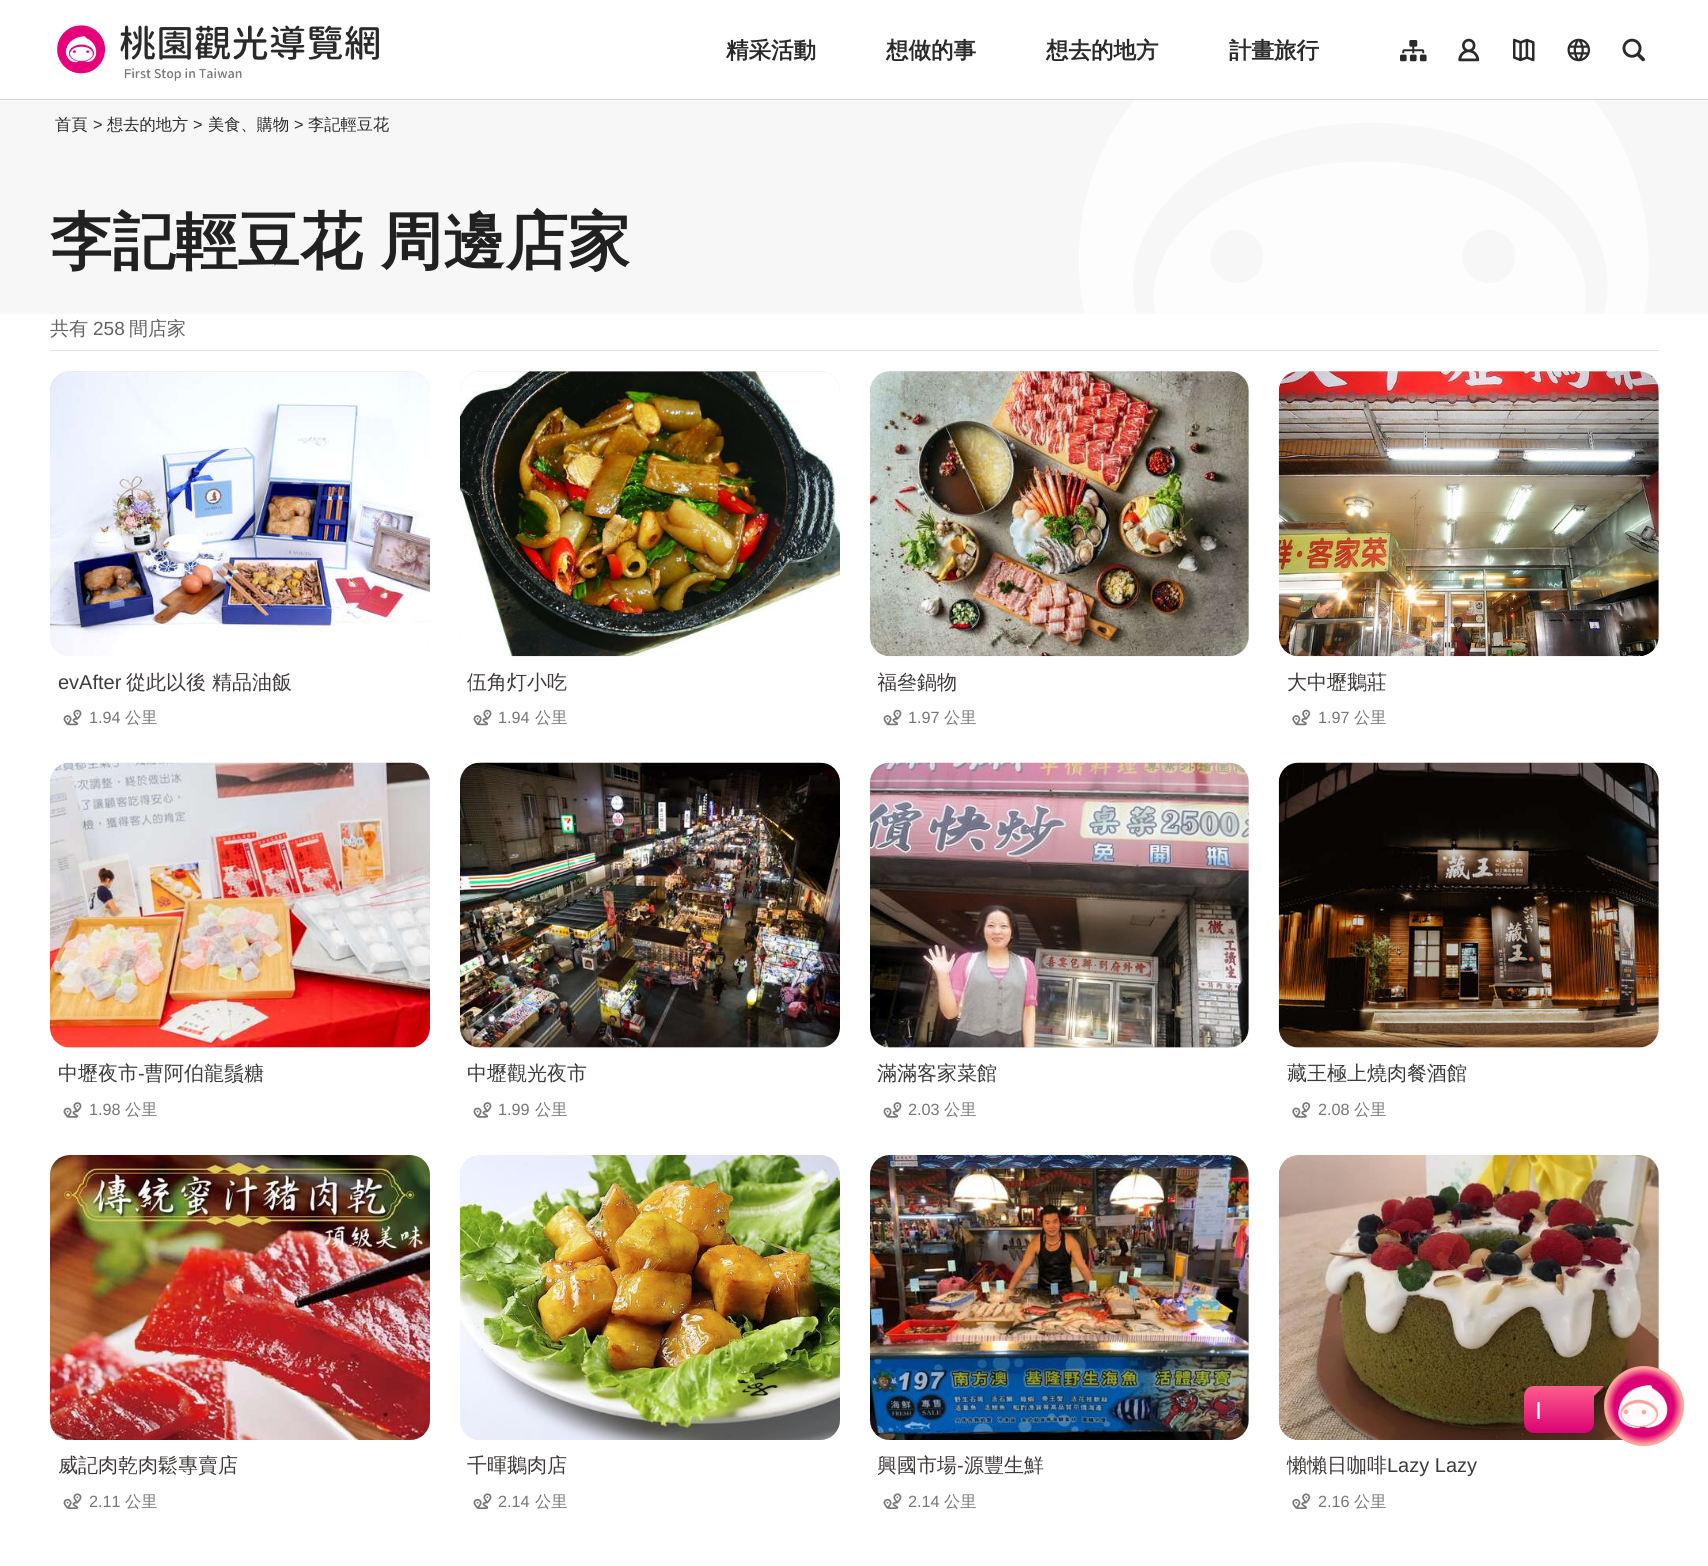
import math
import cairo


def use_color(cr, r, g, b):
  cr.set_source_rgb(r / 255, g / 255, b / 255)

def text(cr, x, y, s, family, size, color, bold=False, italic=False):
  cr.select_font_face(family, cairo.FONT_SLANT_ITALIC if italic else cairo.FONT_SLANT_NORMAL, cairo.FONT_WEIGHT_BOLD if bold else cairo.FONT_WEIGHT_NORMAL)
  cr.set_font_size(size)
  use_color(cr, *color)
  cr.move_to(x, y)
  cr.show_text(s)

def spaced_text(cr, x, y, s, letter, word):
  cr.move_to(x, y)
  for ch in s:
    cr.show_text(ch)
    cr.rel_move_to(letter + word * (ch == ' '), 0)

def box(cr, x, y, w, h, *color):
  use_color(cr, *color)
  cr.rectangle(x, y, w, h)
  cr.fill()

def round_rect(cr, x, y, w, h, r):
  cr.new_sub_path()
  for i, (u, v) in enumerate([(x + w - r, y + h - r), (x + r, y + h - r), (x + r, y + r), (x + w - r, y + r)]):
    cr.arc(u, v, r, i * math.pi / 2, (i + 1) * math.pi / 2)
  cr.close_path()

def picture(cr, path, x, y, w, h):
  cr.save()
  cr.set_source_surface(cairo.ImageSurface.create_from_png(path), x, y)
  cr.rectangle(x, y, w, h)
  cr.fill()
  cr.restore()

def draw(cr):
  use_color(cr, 255, 255, 255)
  cr.paint()
  picture(cr, "img_01.png", 57, 25, 322, 56)
  picture(cr, "img_02.png", 1400, 40, 27, 22)
  picture(cr, "img_03.png", 1458, 38, 22, 24)
  picture(cr, "img_04.png", 1513, 38, 22, 24)
  picture(cr, "img_05.png", 1567, 38, 23, 24)
  picture(cr, "img_06.png", 1622, 38, 23, 24)
  box(cr, 0, 99, 1708, 1, 215, 215, 215)
  box(cr, 0, 100, 1708, 214, 247, 247, 247)
  picture(cr, "img_07.png", 1079, 100, 570, 214)
  box(cr, 50, 350, 1609, 1, 227, 227, 227)
  use_color(cr, 230, 230, 230)
  round_rect(cr, 50, 371, 380, 285, 20)
  cr.fill()
  picture(cr, "img_08.png", 50, 371, 380, 285)
  picture(cr, "img_09.png", 63, 709, 19, 17)
  round_rect(cr, 460, 371, 380, 285, 20)
  cr.fill()
  picture(cr, "img_10.png", 460, 371, 380, 286)
  picture(cr, "img_09.png", 473, 709, 19, 17)
  round_rect(cr, 870, 371, 379, 285, 20)
  cr.fill()
  picture(cr, "img_11.png", 870, 371, 379, 286)
  picture(cr, "img_09.png", 883, 709, 19, 17)
  round_rect(cr, 1279, 371, 380, 285, 20)
  cr.fill()
  picture(cr, "img_12.png", 1278, 371, 381, 286)
  picture(cr, "img_13.png", 1292, 709, 19, 17)
  round_rect(cr, 50, 763, 380, 285, 20)
  cr.fill()
  picture(cr, "img_14.png", 50, 762, 380, 286)
  picture(cr, "img_15.png", 63, 1102, 19, 16)
  round_rect(cr, 460, 763, 380, 285, 20)
  cr.fill()
  picture(cr, "img_16.png", 460, 762, 380, 286)
  picture(cr, "img_15.png", 473, 1102, 19, 16)
  round_rect(cr, 870, 763, 379, 285, 20)
  cr.fill()
  picture(cr, "img_17.png", 870, 762, 379, 286)
  picture(cr, "img_15.png", 883, 1102, 19, 16)
  round_rect(cr, 1279, 763, 380, 285, 20)
  cr.fill()
  picture(cr, "img_18.png", 1278, 762, 381, 286)
  picture(cr, "img_19.png", 1292, 1102, 19, 16)
  round_rect(cr, 50, 1155, 380, 285, 20)
  cr.fill()
  picture(cr, "img_20.png", 50, 1155, 380, 285)
  picture(cr, "img_21.png", 63, 1493, 19, 17)
  round_rect(cr, 460, 1155, 380, 285, 20)
  cr.fill()
  picture(cr, "img_22.png", 460, 1155, 380, 285)
  picture(cr, "img_21.png", 473, 1493, 19, 17)
  round_rect(cr, 870, 1155, 379, 285, 20)
  cr.fill()
  picture(cr, "img_23.png", 870, 1155, 379, 285)
  picture(cr, "img_21.png", 883, 1493, 19, 17)
  round_rect(cr, 1279, 1155, 380, 285, 20)
  cr.fill()
  picture(cr, "img_24.png", 1278, 1155, 381, 285)
  picture(cr, "img_25.png", 1292, 1493, 19, 17)
  use_color(cr, 252, 94, 138)
  cr.new_path()
  cr.move_to(1604, 1386)
  cr.line_to(1594, 1386)
  cr.line_to(1594, 1396)
  cr.close_path()
  cr.fill()
  gradient = cairo.LinearGradient(1559, 1386, 1559, 1433)
  gradient.add_color_stop_rgba(0, 0.988, 0.369, 0.541, 1)
  gradient.add_color_stop_rgba(1, 0.863, 0.004, 0.459, 1)
  cr.set_source(gradient)
  cr.new_path()
  cr.move_to(1534, 1386)
  cr.line_to(1594, 1386)
  cr.line_to(1594, 1423)
  cr.curve_to(1594, 1428.5, 1589.5, 1433, 1584, 1433)
  cr.line_to(1534, 1433)
  cr.curve_to(1528.5, 1433, 1524, 1428.5, 1524, 1423)
  cr.line_to(1524, 1396)
  cr.curve_to(1524, 1390.5, 1528.5, 1386, 1534, 1386)
  cr.close_path()
  cr.fill()
  gradient = cairo.RadialGradient(1644, 1406, 0, 1644, 1406, 40)
  gradient.add_color_stop_rgba(0.75, 0.863, 0.004, 0.459, 1)
  gradient.add_color_stop_rgba(0.95, 0.996, 0.635, 0.604, 1)
  cr.set_source(gradient)
  cr.arc(1644, 1406, 40, 0, 2 * math.pi)
  cr.fill()
  picture(cr, "img_26.png", 1618, 1385, 50, 44)
  text(cr, 726, 58, "精采活動", "WenQuanYi Zen Hei", 22.5, (42, 42, 42), bold=True)
  text(cr, 886, 58, "想做的事", "WenQuanYi Zen Hei", 22.5, (42, 42, 42), bold=True)
  text(cr, 1046, 58, "想去的地方", "WenQuanYi Zen Hei", 22.5, (42, 42, 42), bold=True)
  text(cr, 1229, 58, "計畫旅行", "WenQuanYi Zen Hei", 22.5, (42, 42, 42), bold=True)
  text(cr, 55, 130, "首頁", "WenQuanYi Zen Hei Medium", 16.25, (42, 42, 42))
  text(cr, 93, 130, ">", "Liberation Sans", 16.25, (42, 42, 42))
  text(cr, 107, 130, "想去的地方", "WenQuanYi Zen Hei Medium", 16.25, (42, 42, 42))
  text(cr, 193, 130, ">", "Liberation Sans", 16.25, (42, 42, 42))
  text(cr, 208, 130, "美食、購物", "WenQuanYi Zen Hei Medium", 16.25, (42, 42, 42))
  text(cr, 294, 130, ">", "Liberation Sans", 16.25, (42, 42, 42))
  text(cr, 308, 130, "李記輕豆花", "WenQuanYi Zen Hei Medium", 16.25, (42, 42, 42))
  cr.select_font_face("WenQuanYi Zen Hei", cairo.FONT_SLANT_NORMAL, cairo.FONT_WEIGHT_BOLD)
  cr.set_font_size(62.5)
  use_color(cr, 33, 33, 33)
  spaced_text(cr, 50, 263, "李記輕豆花 周邊店家", 0, -1)
  text(cr, 50, 335, "共有", "WenQuanYi Zen Hei Medium", 19, (98, 98, 98))
  text(cr, 93, 335, "258", "Liberation Sans", 19, (98, 98, 98))
  text(cr, 129, 335, "間店家", "WenQuanYi Zen Hei Medium", 19, (98, 98, 98))
  text(cr, 58, 689, "evAfter", "Liberation Sans", 20, (62, 58, 57))
  text(cr, 126, 689, "從此以後 精品油飯", "WenQuanYi Zen Hei Medium", 20, (62, 58, 57))
  text(cr, 89, 723, "1.94", "Liberation Sans", 16.25, (118, 118, 118))
  text(cr, 125, 723, "公里", "WenQuanYi Zen Hei Medium", 16.25, (118, 118, 118))
  text(cr, 467, 689, "伍角灯小吃", "WenQuanYi Zen Hei Medium", 20, (62, 58, 57))
  text(cr, 498, 723, "1.94", "Liberation Sans", 16.25, (118, 118, 118))
  text(cr, 535, 723, "公里", "WenQuanYi Zen Hei Medium", 16.25, (118, 118, 118))
  cr.save()
  cr.rectangle(878, 669, 363, 26)
  cr.clip()
  text(cr, 877, 689, "福叄鍋物", "WenQuanYi Zen Hei Medium", 20, (62, 58, 57))
  cr.restore()
  text(cr, 908, 723, "1.97", "Liberation Sans", 16.25, (118, 118, 118))
  text(cr, 944, 723, "公里", "WenQuanYi Zen Hei Medium", 16.25, (118, 118, 118))
  text(cr, 1287, 689, "大中壢鵝莊", "WenQuanYi Zen Hei Medium", 20, (62, 58, 57))
  text(cr, 1318, 723, "1.97", "Liberation Sans", 16.25, (118, 118, 118))
  text(cr, 1354, 723, "公里", "WenQuanYi Zen Hei Medium", 16.25, (118, 118, 118))
  text(cr, 58, 1080, "中壢夜市", "WenQuanYi Zen Hei Medium", 20, (62, 58, 57))
  text(cr, 138, 1080, "-", "Liberation Sans", 20, (62, 58, 57))
  text(cr, 144, 1080, "曹阿伯龍鬚糖", "WenQuanYi Zen Hei Medium", 20, (62, 58, 57))
  text(cr, 89, 1115, "1.98", "Liberation Sans", 16.25, (118, 118, 118))
  text(cr, 125, 1115, "公里", "WenQuanYi Zen Hei Medium", 16.25, (118, 118, 118))
  text(cr, 467, 1080, "中壢觀光夜市", "WenQuanYi Zen Hei Medium", 20, (62, 58, 57))
  text(cr, 498, 1115, "1.99", "Liberation Sans", 16.25, (118, 118, 118))
  text(cr, 535, 1115, "公里", "WenQuanYi Zen Hei Medium", 16.25, (118, 118, 118))
  text(cr, 877, 1080, "滿滿客家菜館", "WenQuanYi Zen Hei Medium", 20, (62, 58, 57))
  text(cr, 908, 1115, "2.03", "Liberation Sans", 16.25, (118, 118, 118))
  text(cr, 944, 1115, "公里", "WenQuanYi Zen Hei Medium", 16.25, (118, 118, 118))
  text(cr, 1287, 1080, "藏王極上燒肉餐酒館", "WenQuanYi Zen Hei Medium", 20, (62, 58, 57))
  text(cr, 1318, 1115, "2.08", "Liberation Sans", 16.25, (118, 118, 118))
  text(cr, 1354, 1115, "公里", "WenQuanYi Zen Hei Medium", 16.25, (118, 118, 118))
  text(cr, 58, 1472, "威記肉乾肉鬆專賣店", "WenQuanYi Zen Hei Medium", 20, (62, 58, 57))
  text(cr, 89, 1507, "2.11", "Liberation Sans", 16.25, (118, 118, 118))
  text(cr, 125, 1507, "公里", "WenQuanYi Zen Hei Medium", 16.25, (118, 118, 118))
  text(cr, 467, 1472, "千暉鵝肉店", "WenQuanYi Zen Hei Medium", 20, (62, 58, 57))
  text(cr, 498, 1507, "2.14", "Liberation Sans", 16.25, (118, 118, 118))
  text(cr, 535, 1507, "公里", "WenQuanYi Zen Hei Medium", 16.25, (118, 118, 118))
  cr.save()
  cr.rectangle(878, 1453, 363, 26)
  cr.clip()
  text(cr, 877, 1472, "興國市場", "WenQuanYi Zen Hei Medium", 20, (62, 58, 57))
  cr.restore()
  text(cr, 957, 1472, "-", "Liberation Sans", 20, (62, 58, 57))
  text(cr, 964, 1472, "源豐生鮮", "WenQuanYi Zen Hei Medium", 20, (62, 58, 57))
  text(cr, 908, 1507, "2.14", "Liberation Sans", 16.25, (118, 118, 118))
  text(cr, 944, 1507, "公里", "WenQuanYi Zen Hei Medium", 16.25, (118, 118, 118))
  text(cr, 1287, 1472, "懶懶日咖啡", "WenQuanYi Zen Hei Medium", 20, (62, 58, 57))
  text(cr, 1387, 1472, "Lazy Lazy", "Liberation Sans", 20, (62, 58, 57))
  text(cr, 1318, 1507, "2.16", "Liberation Sans", 16.25, (118, 118, 118))
  text(cr, 1354, 1507, "公里", "WenQuanYi Zen Hei Medium", 16.25, (118, 118, 118))
  text(cr, 1536, 1415, "|", "Liberation Sans", 18, (255, 255, 255), bold=True)


surface = cairo.ImageSurface(cairo.FORMAT_RGB24, 1708, 1566)
cr = cairo.Context(surface)
options = cairo.FontOptions()
options.set_hint_metrics(cairo.HINT_METRICS_OFF)
options.set_hint_style(cairo.HINT_STYLE_NONE)
cr.set_font_options(options)
cr.set_miter_limit(4)
draw(cr)
surface.write_to_png("out.png")
